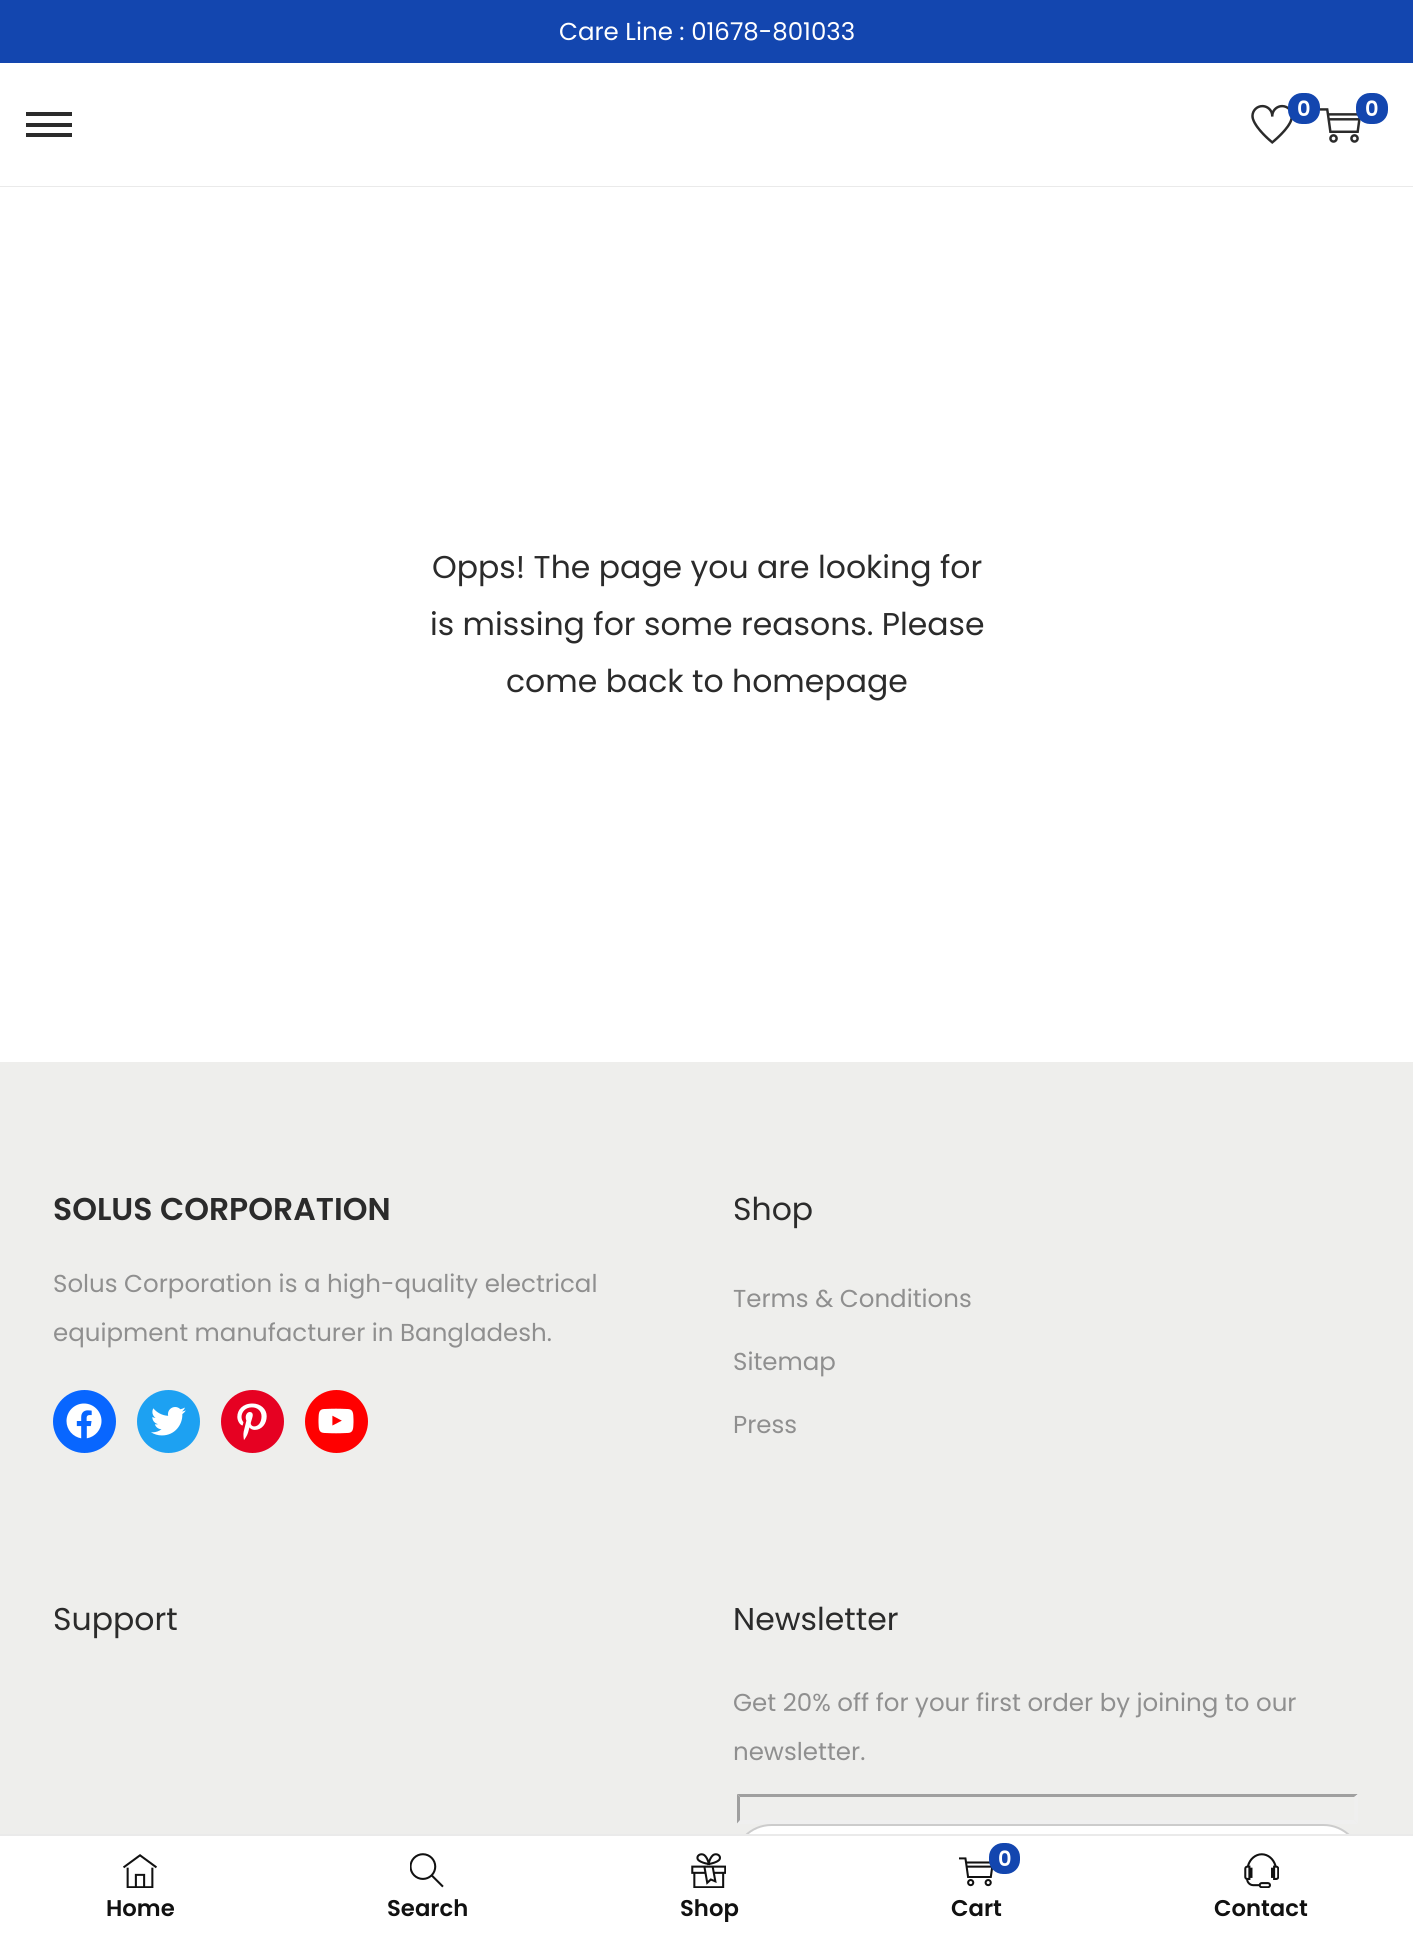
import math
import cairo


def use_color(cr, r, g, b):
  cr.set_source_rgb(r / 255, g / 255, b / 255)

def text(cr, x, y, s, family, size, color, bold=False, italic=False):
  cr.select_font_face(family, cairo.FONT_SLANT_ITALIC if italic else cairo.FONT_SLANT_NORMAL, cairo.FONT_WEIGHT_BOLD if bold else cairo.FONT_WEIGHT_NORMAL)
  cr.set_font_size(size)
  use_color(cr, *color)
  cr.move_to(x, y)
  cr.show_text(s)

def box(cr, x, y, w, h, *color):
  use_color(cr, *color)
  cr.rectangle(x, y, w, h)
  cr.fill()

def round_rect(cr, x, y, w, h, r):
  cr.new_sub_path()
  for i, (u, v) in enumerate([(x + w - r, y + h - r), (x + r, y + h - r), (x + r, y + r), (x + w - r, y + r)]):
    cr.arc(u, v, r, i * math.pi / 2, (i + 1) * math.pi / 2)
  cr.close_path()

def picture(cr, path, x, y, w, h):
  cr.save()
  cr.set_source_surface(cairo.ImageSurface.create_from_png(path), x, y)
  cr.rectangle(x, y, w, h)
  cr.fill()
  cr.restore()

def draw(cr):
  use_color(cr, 255, 255, 255)
  cr.paint()
  box(cr, 0, 0, 1413, 63, 19, 70, 175)
  box(cr, 0, 186, 1413, 1, 234, 234, 234)
  picture(cr, "img_01.png", 1251, 104, 42, 40)
  use_color(cr, 19, 70, 175)
  round_rect(cr, 1288, 93, 32, 31, 14)
  cr.fill()
  picture(cr, "img_02.png", 1320, 108, 41, 35)
  round_rect(cr, 1356, 93, 32, 31, 14)
  cr.fill()
  box(cr, 26, 123, 46, 4, 43, 43, 43)
  box(cr, 26, 112, 46, 4, 43, 43, 43)
  box(cr, 26, 133, 46, 4, 43, 43, 43)
  box(cr, 0, 1062, 1413, 772, 238, 238, 236)
  use_color(cr, 8, 102, 255)
  cr.arc(84.5, 1421.5, 31.5, 0, 2 * math.pi)
  cr.fill()
  picture(cr, "img_03.png", 66, 1403, 36, 36)
  use_color(cr, 29, 161, 242)
  cr.arc(168.5, 1421.5, 31.5, 0, 2 * math.pi)
  cr.fill()
  picture(cr, "img_04.png", 151, 1407, 35, 29)
  use_color(cr, 230, 1, 34)
  cr.arc(252.5, 1421.5, 31.5, 0, 2 * math.pi)
  cr.fill()
  picture(cr, "img_05.png", 237, 1403, 30, 37)
  use_color(cr, 255, 0, 0)
  cr.arc(336.5, 1421.5, 31.5, 0, 2 * math.pi)
  cr.fill()
  picture(cr, "img_06.png", 318, 1408, 36, 26)
  use_color(cr, 159, 159, 159)
  cr.new_path()
  cr.move_to(737, 1794)
  cr.line_to(1358, 1794)
  cr.line_to(1354, 1797)
  cr.line_to(740, 1797)
  cr.close_path()
  cr.fill()
  use_color(cr, 239, 239, 239)
  cr.new_path()
  cr.move_to(1358, 1794)
  cr.line_to(1358, 1823.5)
  cr.line_to(1354.5, 1820)
  cr.line_to(1354.5, 1797)
  cr.close_path()
  cr.fill()
  cr.new_path()
  cr.move_to(1358, 1824)
  cr.line_to(737, 1824)
  cr.line_to(740, 1820)
  cr.line_to(1354, 1820)
  cr.close_path()
  cr.fill()
  use_color(cr, 159, 159, 159)
  cr.new_path()
  cr.move_to(737, 1823.5)
  cr.line_to(737, 1794)
  cr.line_to(740, 1797)
  cr.line_to(740, 1820)
  cr.close_path()
  cr.fill()
  use_color(cr, 255, 255, 255)
  round_rect(cr, 734, 1825, 627, 75, 37.5)
  cr.fill_preserve()
  use_color(cr, 204, 204, 204)
  cr.stroke()
  box(cr, 733, 1836, 629, 65, 255, 255, 255)
  box(cr, 0, 1834, 1413, 2, 234, 234, 234)
  picture(cr, "img_07.png", 123, 1854, 34, 34)
  picture(cr, "img_08.png", 410, 1853, 34, 35)
  picture(cr, "img_09.png", 691, 1853, 35, 35)
  picture(cr, "img_10.png", 959, 1857, 34, 30)
  use_color(cr, 19, 70, 175)
  round_rect(cr, 989, 1843, 31, 31, 14)
  cr.fill()
  picture(cr, "img_11.png", 1244, 1853, 35, 35)
  text(cr, 559, 40, "Care Line : 01678-801033", "Poppins", 24.5, (255, 255, 255))
  text(cr, 1297, 116, "0", "Poppins SemiBold", 21, (255, 255, 255))
  text(cr, 1365, 116, "0", "Poppins SemiBold", 21, (255, 255, 255))
  text(cr, 432, 578, "Opps! The page you are looking for", "Poppins", 31.5, (43, 43, 43))
  text(cr, 430, 635, "is missing for some reasons. Please", "Poppins", 31.5, (43, 43, 43))
  text(cr, 506, 692, "come back to homepage", "Poppins", 31.5, (43, 43, 43))
  text(cr, 53, 1220, "SOLUS CORPORATION", "Poppins SemiBold", 31.5, (43, 43, 43))
  text(cr, 53, 1292, "Solus Corporation is a high-quality electrical", "Poppins", 24.5, (143, 143, 143))
  text(cr, 53, 1341, "equipment manufacturer in Bangladesh.", "Poppins", 24.5, (143, 143, 143))
  text(cr, 733, 1220, "Shop", "Poppins", 31.5, (43, 43, 43))
  text(cr, 733, 1307, "Terms & Conditions", "Poppins", 24.5, (143, 143, 143))
  text(cr, 733, 1370, "Sitemap", "Poppins", 24.5, (143, 143, 143))
  text(cr, 733, 1433, "Press", "Poppins", 24.5, (143, 143, 143))
  text(cr, 53, 1630, "Support", "Poppins", 31.5, (43, 43, 43))
  text(cr, 733, 1630, "Newsletter", "Poppins", 31.5, (43, 43, 43))
  text(cr, 733, 1711, "Get 20% off for your first order by joining to our", "Poppins", 24.5, (143, 143, 143))
  text(cr, 733, 1760, "newsletter.", "Poppins", 24.5, (143, 143, 143))
  text(cr, 106, 1916, "Home", "Poppins SemiBold", 22.75, (17, 17, 17))
  text(cr, 387, 1916, "Search", "Poppins SemiBold", 22.75, (17, 17, 17))
  text(cr, 680, 1916, "Shop", "Poppins SemiBold", 22.75, (17, 17, 17))
  text(cr, 998, 1866, "0", "Poppins SemiBold", 21, (255, 255, 255))
  text(cr, 951, 1916, "Cart", "Poppins SemiBold", 22.75, (17, 17, 17))
  text(cr, 1214, 1916, "Contact", "Poppins SemiBold", 22.75, (17, 17, 17))


surface = cairo.ImageSurface(cairo.FORMAT_RGB24, 1413, 1936)
cr = cairo.Context(surface)
options = cairo.FontOptions()
options.set_hint_metrics(cairo.HINT_METRICS_OFF)
options.set_hint_style(cairo.HINT_STYLE_NONE)
cr.set_font_options(options)
cr.set_miter_limit(4)
draw(cr)
surface.write_to_png("out.png")
